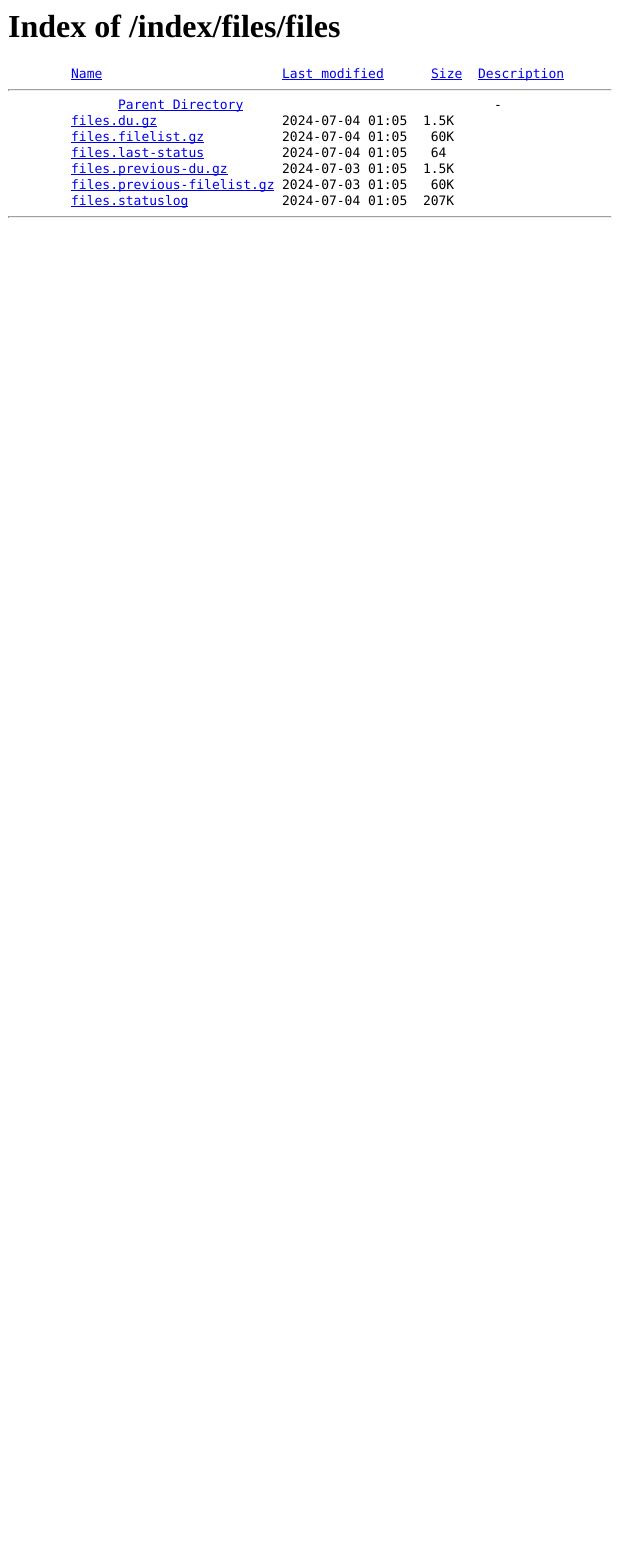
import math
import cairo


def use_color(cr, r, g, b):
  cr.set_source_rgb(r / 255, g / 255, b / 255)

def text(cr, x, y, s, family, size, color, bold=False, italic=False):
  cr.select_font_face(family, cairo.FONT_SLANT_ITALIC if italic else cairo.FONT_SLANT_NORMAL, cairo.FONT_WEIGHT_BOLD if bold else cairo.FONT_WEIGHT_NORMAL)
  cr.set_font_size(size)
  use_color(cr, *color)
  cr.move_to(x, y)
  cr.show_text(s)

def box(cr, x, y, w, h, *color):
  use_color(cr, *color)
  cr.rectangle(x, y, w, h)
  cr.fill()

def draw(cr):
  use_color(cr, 255, 255, 255)
  cr.paint()
  box(cr, 71, 79, 31, 1, 0, 0, 238)
  box(cr, 282, 79, 102, 1, 0, 0, 238)
  box(cr, 431, 79, 31, 1, 0, 0, 238)
  box(cr, 478, 79, 86, 1, 0, 0, 238)
  box(cr, 8, 89, 604, 1, 159, 159, 159)
  box(cr, 611, 89, 1, 2, 238, 238, 238)
  box(cr, 8, 90, 604, 1, 238, 238, 238)
  box(cr, 8, 89, 1, 2, 159, 159, 159)
  box(cr, 118, 110, 125, 1, 0, 0, 238)
  box(cr, 71, 126, 86, 1, 0, 0, 238)
  box(cr, 71, 142, 133, 1, 0, 0, 238)
  box(cr, 71, 158, 133, 1, 0, 0, 238)
  box(cr, 71, 174, 157, 1, 0, 0, 238)
  box(cr, 71, 190, 203, 1, 0, 0, 238)
  box(cr, 71, 206, 117, 1, 0, 0, 238)
  box(cr, 8, 216, 604, 1, 159, 159, 159)
  box(cr, 611, 216, 1, 2, 238, 238, 238)
  box(cr, 8, 217, 604, 1, 238, 238, 238)
  box(cr, 8, 216, 1, 2, 159, 159, 159)
  text(cr, 8, 37, "Index of /index/files/files", "Liberation Serif", 32, (0, 0, 0), bold=True)
  text(cr, 71, 78, "Name", "DejaVu Sans Mono", 13, (0, 0, 238))
  text(cr, 282, 78, "Last modified", "DejaVu Sans Mono", 13, (0, 0, 238))
  text(cr, 431, 78, "Size", "DejaVu Sans Mono", 13, (0, 0, 238))
  text(cr, 478, 78, "Description", "DejaVu Sans Mono", 13, (0, 0, 238))
  text(cr, 118, 109, "Parent Directory", "DejaVu Sans Mono", 13, (0, 0, 238))
  text(cr, 494, 109, "-", "DejaVu Sans Mono", 13, (0, 0, 0))
  text(cr, 71, 125, "files.du.gz", "DejaVu Sans Mono", 13, (0, 0, 238))
  text(cr, 282, 125, "2024-07-04 01:05  1.5K", "DejaVu Sans Mono", 13, (0, 0, 0))
  text(cr, 71, 141, "files.filelist.gz", "DejaVu Sans Mono", 13, (0, 0, 238))
  text(cr, 282, 141, "2024-07-04 01:05   60K", "DejaVu Sans Mono", 13, (0, 0, 0))
  text(cr, 71, 157, "files.last-status", "DejaVu Sans Mono", 13, (0, 0, 238))
  text(cr, 282, 157, "2024-07-04 01:05   64", "DejaVu Sans Mono", 13, (0, 0, 0))
  text(cr, 71, 173, "files.previous-du.gz", "DejaVu Sans Mono", 13, (0, 0, 238))
  text(cr, 282, 173, "2024-07-03 01:05  1.5K", "DejaVu Sans Mono", 13, (0, 0, 0))
  text(cr, 71, 189, "files.previous-filelist.gz", "DejaVu Sans Mono", 13, (0, 0, 238))
  text(cr, 282, 189, "2024-07-03 01:05   60K", "DejaVu Sans Mono", 13, (0, 0, 0))
  text(cr, 71, 205, "files.statuslog", "DejaVu Sans Mono", 13, (0, 0, 238))
  text(cr, 282, 205, "2024-07-04 01:05  207K", "DejaVu Sans Mono", 13, (0, 0, 0))


surface = cairo.ImageSurface(cairo.FORMAT_RGB24, 620, 1544)
cr = cairo.Context(surface)
options = cairo.FontOptions()
options.set_hint_metrics(cairo.HINT_METRICS_OFF)
options.set_hint_style(cairo.HINT_STYLE_NONE)
cr.set_font_options(options)
cr.set_miter_limit(4)
draw(cr)
surface.write_to_png("out.png")
